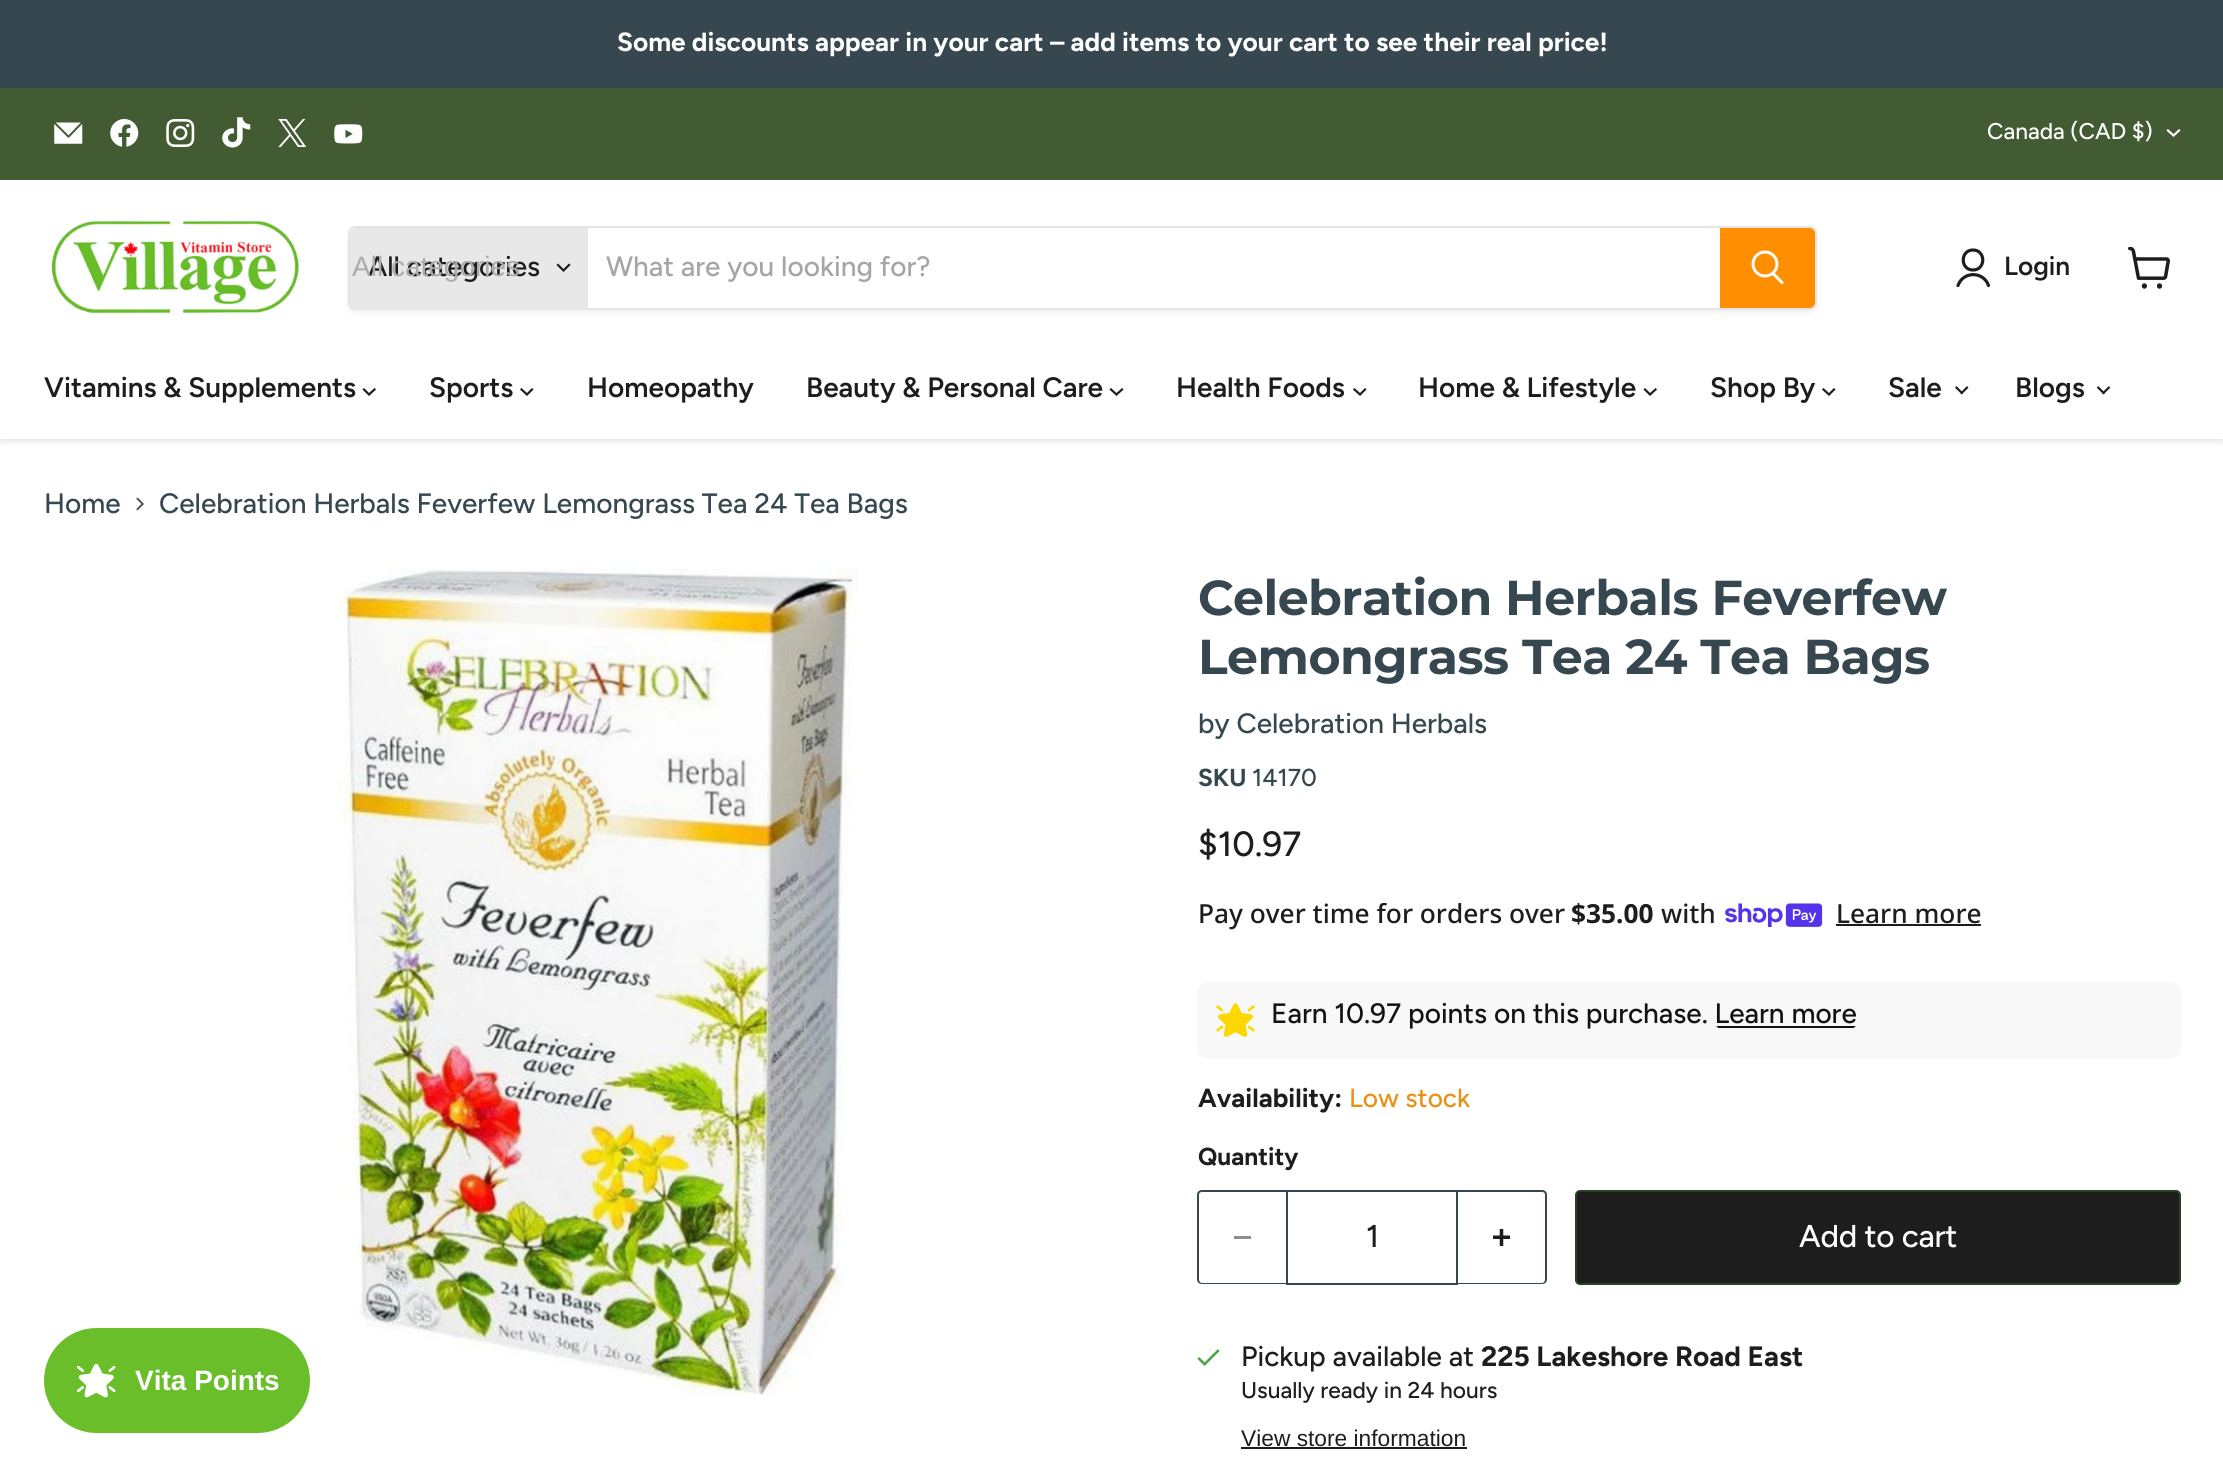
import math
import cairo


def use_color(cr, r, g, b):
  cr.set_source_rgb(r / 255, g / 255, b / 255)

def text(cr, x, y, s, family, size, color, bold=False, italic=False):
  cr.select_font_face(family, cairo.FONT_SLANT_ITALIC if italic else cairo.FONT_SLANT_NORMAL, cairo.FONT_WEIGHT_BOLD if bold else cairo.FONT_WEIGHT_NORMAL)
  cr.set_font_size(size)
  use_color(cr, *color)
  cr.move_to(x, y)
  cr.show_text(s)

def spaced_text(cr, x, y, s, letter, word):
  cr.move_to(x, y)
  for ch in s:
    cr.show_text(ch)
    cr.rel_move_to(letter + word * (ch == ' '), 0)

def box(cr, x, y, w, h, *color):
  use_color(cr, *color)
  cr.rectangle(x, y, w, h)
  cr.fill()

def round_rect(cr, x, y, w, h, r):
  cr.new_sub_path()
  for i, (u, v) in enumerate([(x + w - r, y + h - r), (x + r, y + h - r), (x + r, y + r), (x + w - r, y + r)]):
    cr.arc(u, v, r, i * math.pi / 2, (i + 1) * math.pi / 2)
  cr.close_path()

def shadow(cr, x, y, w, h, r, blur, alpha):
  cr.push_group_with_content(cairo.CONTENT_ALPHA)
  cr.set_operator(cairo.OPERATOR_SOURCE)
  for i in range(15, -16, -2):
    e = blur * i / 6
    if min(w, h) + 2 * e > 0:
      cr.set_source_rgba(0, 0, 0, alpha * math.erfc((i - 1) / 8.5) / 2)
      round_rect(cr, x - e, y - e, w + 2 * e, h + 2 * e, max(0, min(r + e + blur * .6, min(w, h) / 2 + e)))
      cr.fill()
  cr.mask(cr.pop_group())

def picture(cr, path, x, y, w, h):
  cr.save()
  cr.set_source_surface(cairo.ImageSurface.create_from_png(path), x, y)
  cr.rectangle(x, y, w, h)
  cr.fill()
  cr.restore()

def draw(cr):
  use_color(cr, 255, 255, 255)
  cr.paint()
  box(cr, 0, 0, 2223, 88, 55, 71, 79)
  use_color(cr, 128, 128, 128)
  shadow(cr, 0, 182, 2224, 259, 0, 3.5, 0.25)
  box(cr, 0, 88, 2223, 92, 67, 91, 50)
  picture(cr, "img_01.png", 54, 122, 29, 22)
  picture(cr, "img_02.png", 110, 119, 29, 28)
  picture(cr, "img_03.png", 166, 119, 29, 28)
  picture(cr, "img_04.png", 222, 117, 29, 31)
  picture(cr, "img_05.png", 278, 119, 29, 28)
  picture(cr, "img_06.png", 334, 124, 29, 20)
  cr.new_path()
  cr.move_to(2173.5, 135.5)
  cr.line_to(2179, 130.5)
  cr.move_to(2173.5, 135.5)
  cr.line_to(2168, 130.5)
  use_color(cr, 255, 255, 255)
  cr.set_line_width(2.2)
  cr.set_line_cap(cairo.LINE_CAP_SQUARE)
  cr.stroke()
  box(cr, 0, 180, 2223, 259, 255, 255, 255)
  picture(cr, "img_07.png", 51, 221, 248, 93)
  cr.save()
  cr.set_fill_rule(cairo.FILL_RULE_EVEN_ODD)
  cr.new_path()
  cr.move_to(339, 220)
  cr.line_to(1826, 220)
  cr.line_to(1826, 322)
  cr.line_to(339, 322)
  cr.close_path()
  cr.move_to(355, 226)
  cr.line_to(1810, 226)
  cr.curve_to(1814, 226, 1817, 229, 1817, 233)
  cr.line_to(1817, 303)
  cr.curve_to(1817, 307, 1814, 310, 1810, 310)
  cr.line_to(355, 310)
  cr.curve_to(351, 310, 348, 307, 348, 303)
  cr.line_to(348, 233)
  cr.curve_to(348, 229, 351, 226, 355, 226)
  cr.close_path()
  cr.clip()
  use_color(cr, 128, 128, 128)
  shadow(cr, 348, 229, 1469, 84, 7, 2.5, 0.11)
  cr.restore()
  round_rect(cr, 349, 227, 1467, 82, 6)
  cr.set_source_rgba(0.502, 0.502, 0.502, 0.2)
  cr.set_line_width(2)
  cr.set_line_cap(cairo.LINE_CAP_BUTT)
  cr.stroke()
  use_color(cr, 232, 232, 232)
  cr.new_path()
  cr.move_to(355, 228)
  cr.line_to(588, 228)
  cr.line_to(588, 308)
  cr.line_to(355, 308)
  cr.curve_to(352, 308, 350, 306, 350, 303)
  cr.line_to(350, 233)
  cr.curve_to(350, 230, 352, 228, 355, 228)
  cr.close_path()
  cr.fill()
  cr.new_path()
  cr.move_to(563.5, 270.5)
  cr.line_to(569, 265)
  cr.move_to(563.5, 270.5)
  cr.line_to(558, 265)
  use_color(cr, 29, 29, 29)
  cr.set_line_width(2.2)
  cr.set_line_cap(cairo.LINE_CAP_SQUARE)
  cr.stroke()
  use_color(cr, 255, 143, 0)
  cr.new_path()
  cr.move_to(1721, 229)
  cr.line_to(1810, 229)
  cr.curve_to(1812, 229, 1814, 231, 1814, 233)
  cr.line_to(1814, 303)
  cr.curve_to(1814, 305, 1812, 307, 1810, 307)
  cr.line_to(1721, 307)
  cr.close_path()
  cr.fill_preserve()
  cr.set_line_width(2)
  cr.set_line_cap(cairo.LINE_CAP_BUTT)
  cr.stroke()
  cr.new_path()
  cr.move_to(1782, 282.5)
  cr.line_to(1773.5, 274)
  use_color(cr, 255, 255, 255)
  cr.set_line_width(3)
  cr.set_line_cap(cairo.LINE_CAP_ROUND)
  cr.stroke()
  cr.arc(1765, 264, 12, 0, 2 * math.pi)
  cr.set_line_cap(cairo.LINE_CAP_BUTT)
  cr.stroke()
  cr.new_path()
  cr.move_to(1973, 270)
  cr.curve_to(1986, 270, 1986, 250, 1973, 250)
  cr.curve_to(1960, 250, 1960, 270, 1973, 270)
  cr.close_path()
  cr.move_to(1988.5, 285.5)
  cr.curve_to(1983.5, 271, 1963, 271, 1958, 285.5)
  use_color(cr, 29, 29, 29)
  cr.set_line_width(3.2)
  cr.set_line_cap(cairo.LINE_CAP_ROUND)
  cr.set_line_join(cairo.LINE_JOIN_ROUND)
  cr.stroke()
  picture(cr, "img_08.png", 2128, 247, 42, 42)
  cr.new_path()
  cr.move_to(369, 394.5)
  cr.line_to(374.5, 389.5)
  cr.move_to(369, 394.5)
  cr.line_to(364, 389.5)
  cr.set_line_width(2.2)
  cr.set_line_cap(cairo.LINE_CAP_SQUARE)
  cr.set_line_join(cairo.LINE_JOIN_MITER)
  cr.stroke()
  cr.new_path()
  cr.move_to(527, 394.5)
  cr.line_to(532, 389.5)
  cr.move_to(527, 394.5)
  cr.line_to(521.5, 389.5)
  cr.stroke()
  cr.new_path()
  cr.move_to(1116.5, 394.5)
  cr.line_to(1122, 389.5)
  cr.move_to(1116.5, 394.5)
  cr.line_to(1111, 389.5)
  cr.stroke()
  cr.new_path()
  cr.move_to(1360, 394.5)
  cr.line_to(1365, 389.5)
  cr.move_to(1360, 394.5)
  cr.line_to(1354.5, 389.5)
  cr.stroke()
  cr.new_path()
  cr.move_to(1650, 394.5)
  cr.line_to(1655.5, 389.5)
  cr.move_to(1650, 394.5)
  cr.line_to(1645, 389.5)
  cr.stroke()
  cr.new_path()
  cr.move_to(1829, 394.5)
  cr.line_to(1834, 389.5)
  cr.move_to(1829, 394.5)
  cr.line_to(1823.5, 389.5)
  cr.stroke()
  picture(cr, "img_09.png", 1955, 386, 14, 9)
  picture(cr, "img_10.png", 2097, 386, 14, 9)
  picture(cr, "img_11.png", 136, 497, 8, 14)
  picture(cr, "img_12.png", 334, 569, 525, 826)
  picture(cr, "img_13.png", 1725, 903, 98, 24)
  box(cr, 1836, 924, 145, 2, 29, 29, 29)
  use_color(cr, 248, 248, 248)
  round_rect(cr, 1197, 982, 984, 77, 11)
  cr.fill()
  picture(cr, "img_14.png", 1216, 1003, 39, 34)
  cr.save()
  round_rect(cr, 1715, 1001, 142, 28, 7)
  cr.clip()
  box(cr, 1715, 1026, 142, 2, 18, 18, 18)
  cr.restore()
  use_color(cr, 55, 71, 79)
  cr.set_fill_rule(cairo.FILL_RULE_EVEN_ODD)
  cr.new_path()
  cr.move_to(1202, 1190)
  cr.line_to(1286, 1190)
  cr.line_to(1286, 1284)
  cr.line_to(1202, 1284)
  cr.curve_to(1199, 1284, 1197, 1282, 1197, 1279)
  cr.line_to(1197, 1195)
  cr.curve_to(1197, 1192, 1199, 1190, 1202, 1190)
  cr.close_path()
  cr.move_to(1202, 1192)
  cr.line_to(1286, 1192)
  cr.line_to(1286, 1283)
  cr.line_to(1202, 1283)
  cr.curve_to(1200, 1283, 1199, 1281, 1199, 1279)
  cr.line_to(1199, 1195)
  cr.curve_to(1199, 1193, 1200, 1192, 1202, 1192)
  cr.close_path()
  cr.fill()
  box(cr, 1234, 1236, 17, 3, 142, 142, 142)
  cr.rectangle(1287, 1191, 170, 93)
  use_color(cr, 55, 71, 79)
  cr.set_line_width(2)
  cr.set_line_cap(cairo.LINE_CAP_BUTT)
  cr.stroke()
  cr.new_path()
  cr.move_to(1458, 1190)
  cr.line_to(1542, 1190)
  cr.curve_to(1545, 1190, 1547, 1192, 1547, 1195)
  cr.line_to(1547, 1279)
  cr.curve_to(1547, 1282, 1545, 1284, 1542, 1284)
  cr.line_to(1458, 1284)
  cr.close_path()
  cr.move_to(1458, 1192)
  cr.line_to(1542, 1192)
  cr.curve_to(1544, 1192, 1545, 1193, 1545, 1195)
  cr.line_to(1545, 1279)
  cr.curve_to(1545, 1281, 1544, 1283, 1542, 1283)
  cr.line_to(1458, 1283)
  cr.close_path()
  cr.fill()
  picture(cr, "img_15.png", 1493, 1229, 17, 17)
  use_color(cr, 29, 29, 29)
  round_rect(cr, 1576, 1191, 604, 93, 4)
  cr.fill_preserve()
  use_color(cr, 40, 65, 35)
  cr.stroke()
  picture(cr, "img_16.png", 1197, 1349, 23, 17)
  box(cr, 1241, 1447, 226, 2, 29, 29, 29)
  use_color(cr, 105, 190, 41)
  round_rect(cr, 44, 1328, 266, 105, 52.5)
  cr.fill()
  picture(cr, "img_17.png", 77, 1363, 39, 35)
  text(cr, 617, 51, "Some discounts appear in your cart – add items to your cart to see their real price!", "Figtree", 26.25, (255, 255, 255), bold=True)
  text(cr, 1987, 139, "Canada (CAD $)", "Figtree Medium", 22.75, (255, 255, 255))
  text(cr, 368, 276, "All categories", "Figtree Medium", 28, (29, 29, 29))
  text(cr, 352, 276, "All categories", "Liberation Sans", 28, (172, 172, 172))
  text(cr, 606, 276, "What are you looking for?", "Figtree Medium", 28, (165, 165, 165))
  text(cr, 2004, 275, "Login", "Figtree SemiBold", 26.25, (29, 29, 29))
  text(cr, 44, 397, "Vitamins & Supplements", "Figtree SemiBold", 28, (29, 29, 29))
  text(cr, 429, 397, "Sports", "Figtree SemiBold", 28, (29, 29, 29))
  text(cr, 587, 397, "Homeopathy", "Figtree SemiBold", 28, (29, 29, 29))
  text(cr, 806, 397, "Beauty & Personal Care", "Figtree SemiBold", 28, (29, 29, 29))
  text(cr, 1176, 397, "Health Foods", "Figtree SemiBold", 28, (29, 29, 29))
  text(cr, 1418, 397, "Home & Lifestyle", "Figtree SemiBold", 28, (29, 29, 29))
  text(cr, 1710, 397, "Shop By", "Figtree SemiBold", 28, (29, 29, 29))
  text(cr, 1888, 397, "Sale", "Figtree SemiBold", 28, (29, 29, 29))
  text(cr, 2015, 397, "Blogs", "Figtree SemiBold", 28, (29, 29, 29))
  text(cr, 44, 513, "Home", "Figtree Medium", 28, (55, 71, 79))
  text(cr, 159, 513, "Celebration Herbals Feverfew Lemongrass Tea 24 Tea Bags", "Figtree Medium", 28, (55, 71, 79))
  cr.select_font_face("Montserrat", cairo.FONT_SLANT_NORMAL, cairo.FONT_WEIGHT_BOLD)
  cr.set_font_size(49)
  spaced_text(cr, 1198, 615, "Celebration Herbals Feverfew", -0.5, 0)
  spaced_text(cr, 1198, 674, "Lemongrass Tea 24 Tea Bags", -0.5, 0)
  text(cr, 1198, 733, "by Celebration Herbals", "Figtree Medium", 28, (55, 71, 79))
  text(cr, 1198, 786, "SKU", "Figtree", 24.5, (55, 71, 79), bold=True)
  text(cr, 1252, 786, "14170", "Figtree Medium", 24.5, (55, 71, 79))
  text(cr, 1198, 856, "$10.97", "Figtree Medium", 35, (29, 29, 29))
  text(cr, 1198, 923, "Pay over time for orders over", "Noto Sans Medium", 26.25, (29, 29, 29))
  text(cr, 1571, 923, "$35.00", "Noto Sans", 26.25, (29, 29, 29), bold=True)
  text(cr, 1661, 923, "with", "Noto Sans Medium", 26.25, (29, 29, 29))
  text(cr, 1836, 923, "Learn more", "Noto Sans Medium", 26.25, (29, 29, 29))
  text(cr, 1271, 1023, "Earn 10.97 points on this purchase. Learn more", "Figtree Medium", 28, (18, 18, 18))
  text(cr, 1198, 1107, "Availability:", "Figtree", 26.25, (29, 29, 29), bold=True)
  text(cr, 1349, 1107, "Low stock", "Figtree Medium", 26.25, (233, 145, 20))
  text(cr, 1198, 1165, "Quantity", "Figtree", 24.5, (29, 29, 29), bold=True)
  text(cr, 1366, 1247, "1", "Figtree Medium", 31.5, (29, 29, 29))
  use_color(cr, 255, 255, 255)
  spaced_text(cr, 1799, 1247, "Add to cart", -0.25, 0)
  text(cr, 1241, 1366, "Pickup available at", "Figtree Medium", 28, (29, 29, 29))
  text(cr, 1481, 1366, "225 Lakeshore Road East", "Figtree", 28, (29, 29, 29), bold=True)
  text(cr, 1241, 1398, "Usually ready in 24 hours", "Figtree Medium", 22.75, (29, 29, 29))
  text(cr, 1241, 1446, "View store information", "Liberation Sans", 22.75, (29, 29, 29))
  text(cr, 135, 1390, "Vita Points", "Liberation Sans", 28, (255, 255, 255), bold=True)


surface = cairo.ImageSurface(cairo.FORMAT_RGB24, 2223, 1467)
cr = cairo.Context(surface)
options = cairo.FontOptions()
options.set_hint_metrics(cairo.HINT_METRICS_OFF)
options.set_hint_style(cairo.HINT_STYLE_NONE)
cr.set_font_options(options)
cr.set_miter_limit(4)
draw(cr)
surface.write_to_png("out.png")
